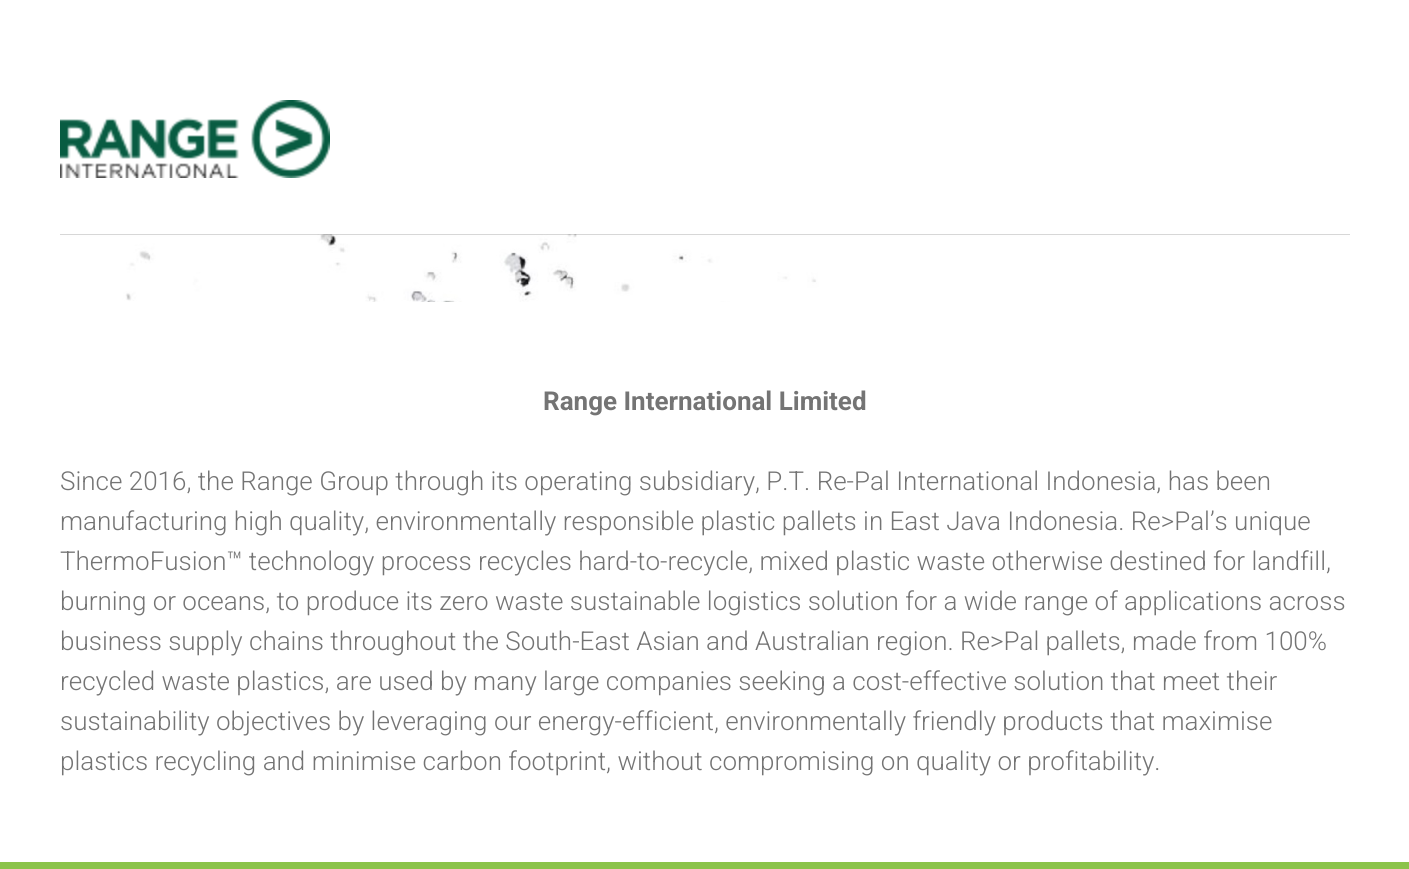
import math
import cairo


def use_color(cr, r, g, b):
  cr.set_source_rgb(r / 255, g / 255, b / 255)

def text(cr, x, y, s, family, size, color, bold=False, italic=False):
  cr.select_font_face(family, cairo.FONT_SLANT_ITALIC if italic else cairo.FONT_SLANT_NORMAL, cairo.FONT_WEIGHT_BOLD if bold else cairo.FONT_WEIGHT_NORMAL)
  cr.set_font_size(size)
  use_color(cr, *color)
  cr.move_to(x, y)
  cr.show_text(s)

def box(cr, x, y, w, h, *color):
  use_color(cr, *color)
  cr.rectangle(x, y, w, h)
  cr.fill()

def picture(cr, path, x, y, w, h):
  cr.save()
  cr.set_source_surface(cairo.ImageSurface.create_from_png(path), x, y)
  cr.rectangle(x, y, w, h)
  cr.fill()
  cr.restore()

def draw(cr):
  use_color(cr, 139, 195, 74)
  cr.paint()
  box(cr, 0, 0, 1409, 862, 255, 255, 255)
  picture(cr, "img_01.png", 60, 100, 270, 78)
  picture(cr, "img_02.png", 60, 234, 1290, 68)
  text(cr, 543, 410, "Range International Limited", "Roboto", 26, (116, 116, 116), bold=True)
  text(cr, 60, 490, "Since 2016, the Range Group through its operating subsidiary, P.T. Re-Pal International Indonesia, has been", "Roboto Light", 26, (116, 116, 116))
  text(cr, 60, 530, "manufacturing high quality, environmentally responsible plastic pallets in East Java Indonesia. Re>Pal’s unique", "Roboto Light", 26, (116, 116, 116))
  text(cr, 60, 570, "ThermoFusion™ technology process recycles hard-to-recycle, mixed plastic waste otherwise destined for landfill,", "Roboto Light", 26, (116, 116, 116))
  text(cr, 60, 610, "burning or oceans, to produce its zero waste sustainable logistics solution for a wide range of applications across", "Roboto Light", 26, (116, 116, 116))
  text(cr, 60, 650, "business supply chains throughout the South-East Asian and Australian region. Re>Pal pallets, made from 100%", "Roboto Light", 26, (116, 116, 116))
  text(cr, 60, 690, "recycled waste plastics, are used by many large companies seeking a cost-effective solution that meet their", "Roboto Light", 26, (116, 116, 116))
  text(cr, 60, 730, "sustainability objectives by leveraging our energy-efficient, environmentally friendly products that maximise", "Roboto Light", 26, (116, 116, 116))
  text(cr, 60, 770, "plastics recycling and minimise carbon footprint, without compromising on quality or profitability.", "Roboto Light", 26, (116, 116, 116))


surface = cairo.ImageSurface(cairo.FORMAT_RGB24, 1409, 869)
cr = cairo.Context(surface)
options = cairo.FontOptions()
options.set_hint_metrics(cairo.HINT_METRICS_OFF)
options.set_hint_style(cairo.HINT_STYLE_NONE)
cr.set_font_options(options)
cr.set_miter_limit(4)
draw(cr)
surface.write_to_png("out.png")
